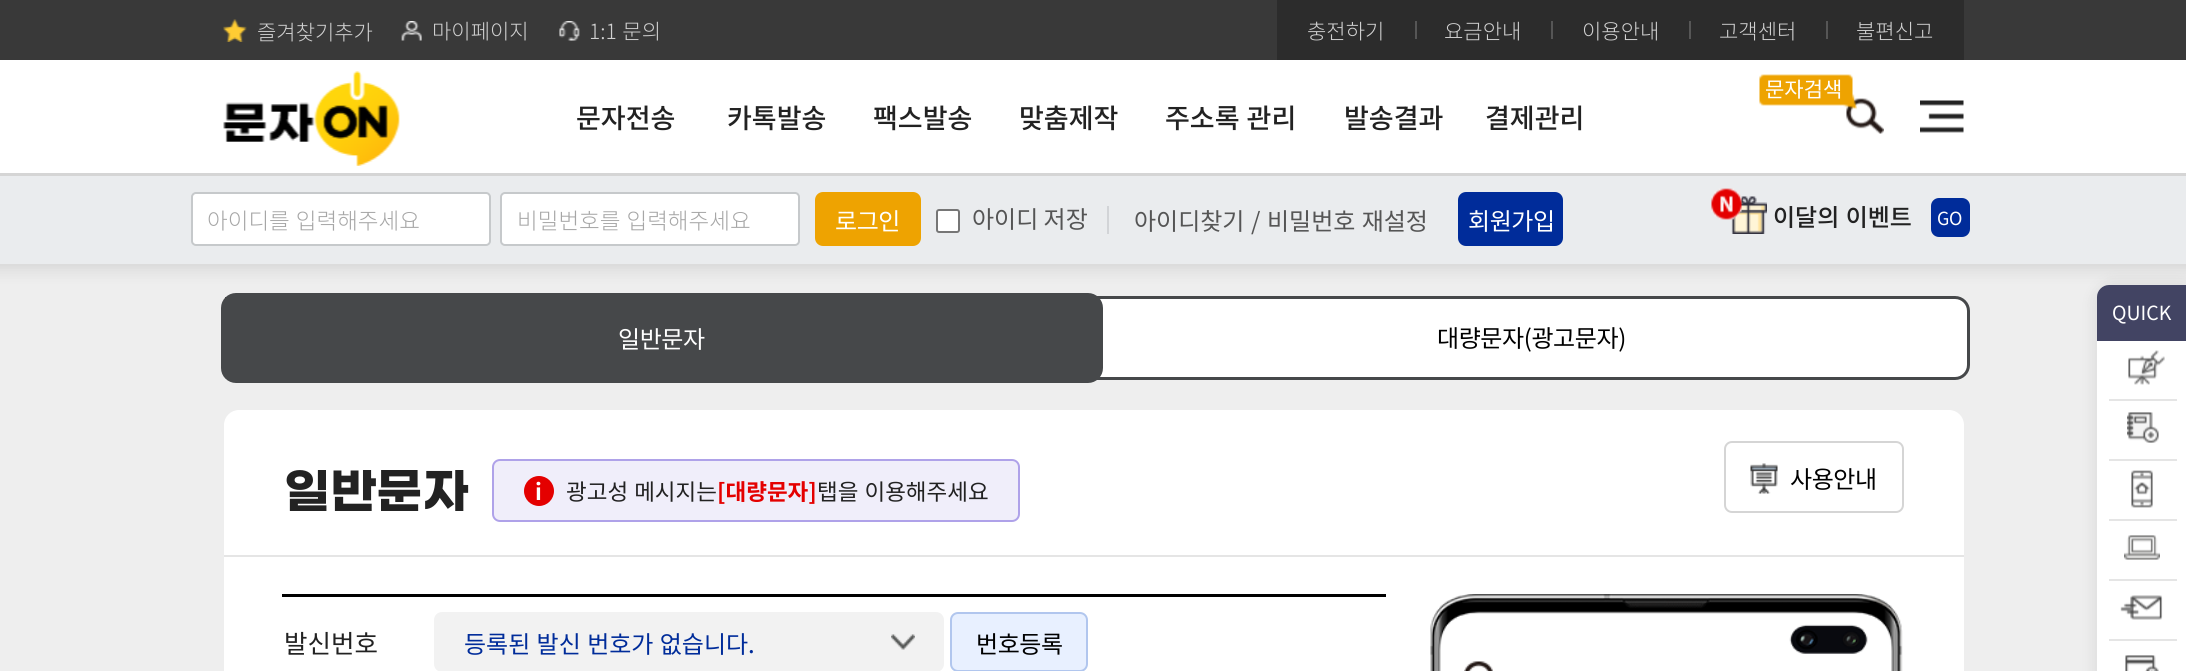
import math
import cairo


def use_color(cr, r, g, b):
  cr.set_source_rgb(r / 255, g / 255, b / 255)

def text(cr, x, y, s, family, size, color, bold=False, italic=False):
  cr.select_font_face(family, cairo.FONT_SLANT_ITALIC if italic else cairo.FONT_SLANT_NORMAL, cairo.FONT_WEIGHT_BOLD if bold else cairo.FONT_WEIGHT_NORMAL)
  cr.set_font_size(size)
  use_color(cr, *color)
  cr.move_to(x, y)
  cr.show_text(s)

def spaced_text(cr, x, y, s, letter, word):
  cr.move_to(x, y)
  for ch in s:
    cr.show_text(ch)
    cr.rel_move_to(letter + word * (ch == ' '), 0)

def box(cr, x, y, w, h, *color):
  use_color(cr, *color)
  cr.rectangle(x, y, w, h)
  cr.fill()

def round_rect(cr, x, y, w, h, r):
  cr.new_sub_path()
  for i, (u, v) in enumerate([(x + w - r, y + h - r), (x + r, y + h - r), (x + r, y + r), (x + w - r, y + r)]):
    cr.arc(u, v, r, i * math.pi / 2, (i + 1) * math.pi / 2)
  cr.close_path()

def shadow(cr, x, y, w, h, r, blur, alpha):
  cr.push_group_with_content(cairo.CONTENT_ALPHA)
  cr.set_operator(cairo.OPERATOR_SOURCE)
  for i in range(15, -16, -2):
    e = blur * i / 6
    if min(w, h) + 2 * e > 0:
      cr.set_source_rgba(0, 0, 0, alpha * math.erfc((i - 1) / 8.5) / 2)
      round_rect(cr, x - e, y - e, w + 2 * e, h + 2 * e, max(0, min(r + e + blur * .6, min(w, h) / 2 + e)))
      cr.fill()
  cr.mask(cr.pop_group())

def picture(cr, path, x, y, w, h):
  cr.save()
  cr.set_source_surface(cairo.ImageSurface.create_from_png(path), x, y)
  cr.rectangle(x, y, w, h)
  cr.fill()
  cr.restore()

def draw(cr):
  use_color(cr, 238, 238, 238)
  cr.paint()
  use_color(cr, 255, 255, 255)
  round_rect(cr, 225.5, 297.5, 1743, 81, 13.5)
  cr.fill_preserve()
  use_color(cr, 70, 72, 74)
  cr.set_line_width(3)
  cr.stroke()
  box(cr, 229, 301, 866, 74, 70, 72, 74)
  cr.rectangle(226, 298, 871, 79)
  cr.set_line_width(2)
  cr.stroke()
  round_rect(cr, 225, 297, 874, 82, 11)
  cr.set_line_width(8)
  cr.stroke()
  use_color(cr, 0, 0, 0)
  shadow(cr, -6, -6, 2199, 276, 0, 7.5, 0.1)
  box(cr, 0, 0, 2186, 60, 57, 57, 57)
  picture(cr, "img_01.png", 223, 19, 24, 23)
  picture(cr, "img_02.png", 401, 21, 21, 20)
  picture(cr, "img_03.png", 559, 21, 21, 20)
  box(cr, 1277, 0, 687, 60, 44, 44, 44)
  box(cr, 1415, 21, 2, 18, 86, 86, 86)
  box(cr, 1551, 21, 2, 18, 86, 86, 86)
  box(cr, 1689, 21, 2, 18, 86, 86, 86)
  box(cr, 1826, 21, 2, 18, 86, 86, 86)
  box(cr, 0, 60, 2186, 113, 255, 255, 255)
  picture(cr, "img_04.png", 223, 71, 177, 95)
  picture(cr, "img_06.png", 1846, 98, 38, 36)
  picture(cr, "img_05.png", 1759, 74, 98, 36)
  picture(cr, "img_07.png", 1920, 100, 44, 33)
  box(cr, 0, 173, 2186, 3, 213, 213, 213)
  box(cr, 0, 176, 2186, 88, 234, 236, 238)
  use_color(cr, 255, 255, 255)
  round_rect(cr, 192, 193, 298, 52, 4)
  cr.fill_preserve()
  use_color(cr, 198, 201, 203)
  cr.set_line_width(2)
  cr.stroke()
  use_color(cr, 255, 255, 255)
  round_rect(cr, 501, 193, 298, 52, 4)
  cr.fill_preserve()
  use_color(cr, 198, 201, 203)
  cr.stroke()
  use_color(cr, 238, 163, 1)
  round_rect(cr, 815, 192, 106, 54, 8)
  cr.fill()
  use_color(cr, 255, 255, 255)
  round_rect(cr, 937, 210, 22, 22, 2)
  cr.fill_preserve()
  use_color(cr, 118, 118, 118)
  cr.stroke()
  box(cr, 1107, 206, 2, 28, 210, 212, 215)
  use_color(cr, 0, 44, 154)
  round_rect(cr, 1458, 192, 105, 54, 8)
  cr.fill()
  picture(cr, "img_08.png", 1731, 196, 36, 38)
  picture(cr, "img_09.png", 1711, 188, 31, 32)
  round_rect(cr, 1931, 198, 39, 39, 8)
  cr.fill()
  use_color(cr, 0, 0, 0)
  shadow(cr, 2096, 284, 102, 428, 18, 7.5, 0.1)
  use_color(cr, 66, 68, 99)
  cr.new_path()
  cr.move_to(2109, 285)
  cr.line_to(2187, 285)
  cr.line_to(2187, 341)
  cr.line_to(2097, 341)
  cr.line_to(2097, 297)
  cr.curve_to(2097, 290.5, 2102.5, 285, 2109, 285)
  cr.close_path()
  cr.fill()
  box(cr, 2097, 341, 89, 330, 255, 255, 255)
  picture(cr, "img_10.png", 2128, 350, 37, 35)
  box(cr, 2109, 399, 68, 2, 229, 229, 229)
  picture(cr, "img_11.png", 2127, 412, 32, 31)
  box(cr, 2109, 459, 68, 2, 229, 229, 229)
  picture(cr, "img_12.png", 2131, 470, 22, 38)
  box(cr, 2109, 519, 68, 2, 229, 229, 229)
  picture(cr, "img_13.png", 2124, 535, 36, 25)
  box(cr, 2109, 579, 68, 2, 229, 229, 229)
  picture(cr, "img_14.png", 2120, 595, 43, 25)
  box(cr, 2109, 639, 68, 2, 229, 229, 229)
  picture(cr, "img_15.png", 2125, 655, 34, 16)
  use_color(cr, 255, 255, 255)
  round_rect(cr, 224, 410, 1740, 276, 15)
  cr.fill()
  use_color(cr, 240, 238, 250)
  round_rect(cr, 493, 460, 526, 61, 7)
  cr.fill_preserve()
  use_color(cr, 175, 162, 233)
  cr.stroke()
  use_color(cr, 228, 0, 0)
  cr.arc(539, 491, 15, 0, 2 * math.pi)
  cr.fill()
  round_rect(cr, 1725, 442, 178, 70, 7)
  use_color(cr, 213, 213, 213)
  cr.stroke()
  picture(cr, "img_16.png", 1750, 463, 28, 31)
  box(cr, 224, 555, 1740, 2, 229, 229, 229)
  box(cr, 282, 594, 1104, 3, 0, 0, 0)
  use_color(cr, 242, 242, 242)
  round_rect(cr, 434, 612, 510, 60, 8)
  cr.fill()
  picture(cr, "img_17.png", 891, 634, 24, 16)
  use_color(cr, 232, 240, 255)
  round_rect(cr, 951, 613, 136, 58, 7)
  cr.fill_preserve()
  use_color(cr, 177, 198, 238)
  cr.stroke()
  picture(cr, "img_18.png", 1430, 594, 473, 77)
  picture(cr, "img_19.png", 1464, 661, 29, 10)
  text(cr, 257, 40, "즐겨찾기추가", "Noto Sans KR Light", 21, (209, 209, 209))
  text(cr, 432, 39, "마이페이지", "Noto Sans KR Light", 21, (209, 209, 209))
  spaced_text(cr, 589, 39, "1:1 문의", 0, 1)
  text(cr, 1307, 39, "충전하기", "Noto Sans KR Light", 21, (209, 209, 209))
  text(cr, 1444, 39, "요금안내", "Noto Sans KR Light", 21, (209, 209, 209))
  text(cr, 1582, 39, "이용안내", "Noto Sans KR Light", 21, (209, 209, 209))
  text(cr, 1719, 39, "고객센터", "Noto Sans KR Light", 21, (209, 209, 209))
  text(cr, 1856, 39, "불편신고", "Noto Sans KR Light", 21, (209, 209, 209))
  text(cr, 1765, 97, "문자검색", "Noto Sans KR", 21, (255, 255, 255))
  text(cr, 576, 128, "문자전송", "Noto Sans KR Medium", 27, (34, 34, 34))
  text(cr, 727, 128, "카톡발송", "Noto Sans KR Medium", 27, (34, 34, 34))
  text(cr, 873, 128, "팩스발송", "Noto Sans KR Medium", 27, (34, 34, 34))
  text(cr, 1019, 128, "맞춤제작", "Noto Sans KR Medium", 27, (34, 34, 34))
  spaced_text(cr, 1165, 128, "주소록 관리", 0, 1)
  text(cr, 1344, 128, "발송결과", "Noto Sans KR Medium", 27, (34, 34, 34))
  text(cr, 1485, 128, "결제관리", "Noto Sans KR Medium", 27, (34, 34, 34))
  cr.select_font_face("Noto Sans KR Light")
  cr.set_font_size(22.5)
  use_color(cr, 166, 166, 166)
  spaced_text(cr, 207, 229, "아이디를 입력해주세요", 0, 1)
  spaced_text(cr, 517, 229, "비밀번호를 입력해주세요", 0, 1)
  cr.select_font_face("Noto Sans KR")
  cr.set_font_size(24)
  use_color(cr, 255, 255, 255)
  spaced_text(cr, 835, 230, "로그인", -0.4, 0)
  text(cr, 972, 228, "아이디 저장", "Noto Sans KR", 24, (85, 85, 85))
  text(cr, 1134, 230, "아이디찾기", "Noto Sans KR", 24, (85, 85, 85))
  text(cr, 1251, 230, "/", "Noto Sans KR", 24, (85, 85, 85))
  spaced_text(cr, 1267, 230, "비밀번호 재설정", 0, 1)
  use_color(cr, 255, 255, 255)
  spaced_text(cr, 1468, 230, "회원가입", -0.4, 0)
  cr.select_font_face("Noto Sans KR Medium")
  use_color(cr, 34, 34, 34)
  spaced_text(cr, 1773, 226, "이달의 이벤트", 0, 1)
  cr.select_font_face("Noto Sans KR")
  cr.set_font_size(18)
  use_color(cr, 255, 255, 255)
  spaced_text(cr, 1937, 225, "GO", -0.4, 0)
  text(cr, 2112, 320, "QUICK", "Noto Sans KR", 19.5, (255, 255, 255))
  cr.set_font_size(24)
  spaced_text(cr, 618, 348, "일반문자", -0.4, 0)
  use_color(cr, 0, 0, 0)
  spaced_text(cr, 1437, 347, "대량문자(광고문자)", -0.4, 0)
  text(cr, 284, 506, "일반문자", "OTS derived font", 48, (34, 34, 34), bold=True)
  text(cr, 535, 500, "i", "Noto Sans KR", 22.5, (255, 255, 255), bold=True)
  cr.select_font_face("Noto Sans KR")
  use_color(cr, 34, 34, 34)
  spaced_text(cr, 566, 500, "광고성 메시지는", 0, 1)
  text(cr, 717, 500, "[대량문자]", "Noto Sans KR", 22.5, (228, 0, 0), bold=True)
  cr.select_font_face("Noto Sans KR")
  use_color(cr, 34, 34, 34)
  spaced_text(cr, 817, 500, "탭을 이용해주세요", 0, 1)
  cr.set_font_size(24)
  use_color(cr, 0, 0, 0)
  spaced_text(cr, 1790, 488, "사용안내", -0.4, 0)
  text(cr, 284, 653, "발신번호", "Noto Sans KR", 25.5, (34, 34, 34))
  cr.set_font_size(24)
  use_color(cr, 0, 44, 154)
  spaced_text(cr, 464, 653, "등록된 발신 번호가 없습니다.", 0, 1)
  use_color(cr, 0, 0, 0)
  spaced_text(cr, 976, 653, "번호등록", -0.4, 0)


surface = cairo.ImageSurface(cairo.FORMAT_RGB24, 2186, 671)
cr = cairo.Context(surface)
options = cairo.FontOptions()
options.set_hint_metrics(cairo.HINT_METRICS_OFF)
options.set_hint_style(cairo.HINT_STYLE_NONE)
cr.set_font_options(options)
cr.set_miter_limit(4)
draw(cr)
surface.write_to_png("out.png")
